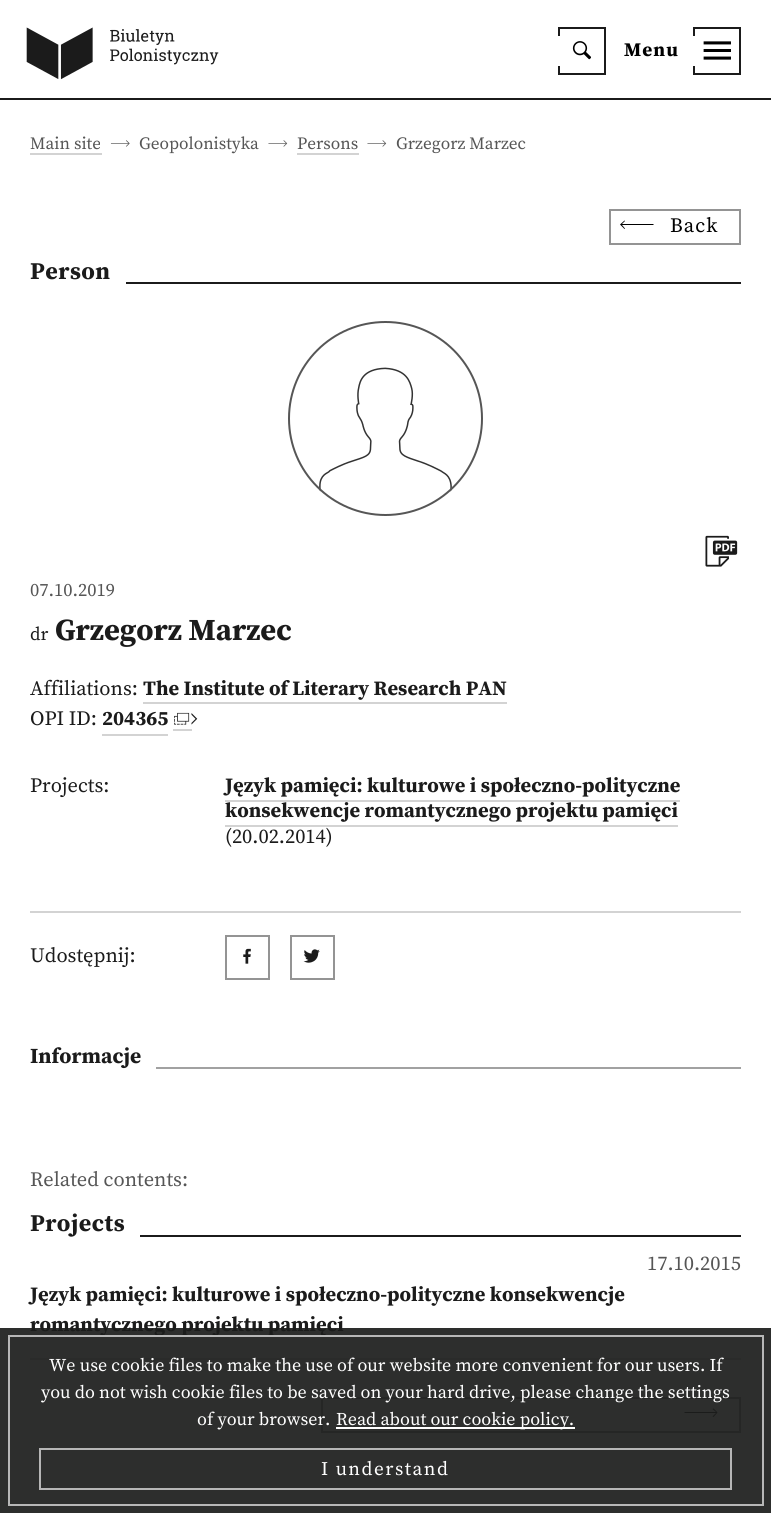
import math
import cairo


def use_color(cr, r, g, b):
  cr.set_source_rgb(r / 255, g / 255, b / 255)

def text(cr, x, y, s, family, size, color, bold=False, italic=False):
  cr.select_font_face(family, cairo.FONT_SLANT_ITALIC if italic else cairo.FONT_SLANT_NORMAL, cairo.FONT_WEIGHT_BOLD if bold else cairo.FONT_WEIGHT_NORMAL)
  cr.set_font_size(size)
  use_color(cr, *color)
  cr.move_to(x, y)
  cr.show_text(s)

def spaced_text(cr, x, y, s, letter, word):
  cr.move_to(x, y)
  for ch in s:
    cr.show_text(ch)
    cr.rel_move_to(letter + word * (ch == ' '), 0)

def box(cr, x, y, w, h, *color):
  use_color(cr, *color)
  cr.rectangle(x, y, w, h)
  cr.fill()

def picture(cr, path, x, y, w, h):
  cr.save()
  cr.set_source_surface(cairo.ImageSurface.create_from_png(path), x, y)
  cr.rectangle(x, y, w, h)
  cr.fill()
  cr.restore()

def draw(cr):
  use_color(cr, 255, 255, 255)
  cr.paint()
  box(cr, 0, 98, 771, 2, 27, 27, 27)
  picture(cr, "img_01.png", 26, 27, 193, 53)
  cr.rectangle(559, 28, 46, 46)
  cr.stroke()
  box(cr, 558, 36, 2, 30, 255, 255, 255)
  picture(cr, "img_02.png", 572, 41, 19, 19)
  cr.rectangle(694, 28, 46, 46)
  use_color(cr, 27, 27, 27)
  cr.stroke()
  box(cr, 693, 36, 2, 30, 255, 255, 255)
  picture(cr, "img_03.png", 703, 41, 28, 19)
  box(cr, 30, 153, 72, 2, 211, 211, 211)
  picture(cr, "img_04.png", 110, 140, 20, 7)
  picture(cr, "img_05.png", 268, 140, 20, 7)
  box(cr, 297, 153, 62, 2, 211, 211, 211)
  picture(cr, "img_05.png", 367, 140, 20, 7)
  cr.rectangle(610, 210, 130, 34)
  use_color(cr, 148, 148, 148)
  cr.stroke()
  use_color(cr, 0, 0, 0)
  cr.new_path()
  cr.move_to(620, 224.5)
  cr.line_to(624.5, 220.5)
  cr.line_to(625, 221)
  cr.line_to(622, 224)
  cr.line_to(653.5, 224)
  cr.line_to(653.5, 225)
  cr.line_to(622, 225)
  cr.line_to(625, 228.5)
  cr.line_to(624.5, 229)
  cr.close_path()
  cr.fill()
  box(cr, 126, 282, 615, 2, 27, 27, 27)
  picture(cr, "img_06.png", 319, 367, 133, 125)
  cr.arc(385.5, 418.5, 96.5, 0, 2 * math.pi)
  use_color(cr, 86, 86, 86)
  cr.stroke()
  picture(cr, "img_07.png", 705, 535, 33, 32)
  box(cr, 143, 702, 364, 2, 211, 211, 211)
  box(cr, 102, 734, 66, 2, 211, 211, 211)
  box(cr, 173, 729, 19, 2, 211, 211, 211)
  picture(cr, "img_08.png", 174, 712, 24, 13)
  box(cr, 225, 800, 455, 2, 211, 211, 211)
  box(cr, 225, 825, 453, 2, 211, 211, 211)
  box(cr, 30, 911, 711, 2, 211, 211, 211)
  cr.rectangle(226, 936, 43, 43)
  use_color(cr, 148, 148, 148)
  cr.stroke()
  picture(cr, "img_09.png", 243, 948, 8, 16)
  cr.rectangle(291, 936, 43, 43)
  cr.stroke()
  picture(cr, "img_10.png", 303, 949, 17, 14)
  box(cr, 156, 1067, 585, 2, 161, 161, 161)
  box(cr, 140, 1235, 601, 2, 27, 27, 27)
  box(cr, 30, 1358, 711, 2, 211, 211, 211)
  cr.rectangle(322, 1398, 418, 34)
  use_color(cr, 148, 148, 148)
  cr.stroke()
  use_color(cr, 27, 27, 27)
  cr.new_path()
  cr.move_to(717.5, 1412.5)
  cr.line_to(713.5, 1417)
  cr.line_to(712.5, 1416.5)
  cr.line_to(716, 1413)
  cr.line_to(684.5, 1413)
  cr.line_to(684.5, 1412)
  cr.line_to(716, 1412)
  cr.line_to(712.5, 1409)
  cr.line_to(713.5, 1408.5)
  cr.close_path()
  cr.fill()
  cr.select_font_face("Source Serif Pro", cairo.FONT_SLANT_NORMAL, cairo.FONT_WEIGHT_BOLD)
  cr.set_font_size(19.25)
  use_color(cr, 0, 0, 0)
  spaced_text(cr, 624, 56, "Menu", 1, 0)
  text(cr, 30, 149, "Main site", "Source Serif Pro", 17.25, (86, 86, 86))
  text(cr, 139, 149, "Geopolonistyka", "Source Serif Pro", 17.25, (86, 86, 86))
  text(cr, 297, 149, "Persons", "Source Serif Pro", 17.25, (86, 86, 86))
  text(cr, 396, 149, "Grzegorz Marzec", "Source Serif Pro", 17.25, (86, 86, 86))
  cr.set_font_size(20.4)
  use_color(cr, 0, 0, 0)
  spaced_text(cr, 670, 232, "Back", 1, 0)
  cr.select_font_face("Source Serif Pro", cairo.FONT_SLANT_NORMAL, cairo.FONT_WEIGHT_BOLD)
  cr.set_font_size(24)
  use_color(cr, 27, 27, 27)
  spaced_text(cr, 30, 279, "Person", 0.5, 0)
  text(cr, 30, 596, "07.10.2019", "Source Serif Pro", 18.5, (86, 86, 86))
  text(cr, 30, 640, "dr", "Source Serif Pro", 18.5, (27, 27, 27))
  text(cr, 55, 640, "Grzegorz Marzec", "Source Serif Pro", 30.5, (27, 27, 27), bold=True)
  text(cr, 30, 695, "Affiliations:", "Source Serif Pro", 20.4, (27, 27, 27))
  text(cr, 143, 695, "The Institute of Literary Research PAN", "Source Serif Pro", 20.4, (27, 27, 27), bold=True)
  text(cr, 30, 725, "OPI ID:", "Source Serif Pro", 20.4, (27, 27, 27))
  text(cr, 102, 725, "204365", "Source Serif Pro", 20.4, (27, 27, 27), bold=True)
  text(cr, 30, 792, "Projects:", "Source Serif Pro", 20.4, (27, 27, 27))
  text(cr, 225, 792, "Język pamięci: kulturowe i społeczno-polityczne", "Source Serif Pro", 20.4, (27, 27, 27), bold=True)
  text(cr, 225, 817, "konsekwencje romantycznego projektu pamięci", "Source Serif Pro", 20.4, (27, 27, 27), bold=True)
  text(cr, 225, 843, "(20.02.2014)", "Source Serif Pro", 20.4, (27, 27, 27))
  text(cr, 30, 962, "Udostępnij:", "Source Serif Pro", 20.4, (27, 27, 27))
  text(cr, 30, 1063, "Informacje", "Source Serif Pro", 21.5, (27, 27, 27), bold=True)
  text(cr, 30, 1186, "Related contents:", "Source Serif Pro", 20.4, (86, 86, 86))
  cr.select_font_face("Source Serif Pro", cairo.FONT_SLANT_NORMAL, cairo.FONT_WEIGHT_BOLD)
  cr.set_font_size(24)
  use_color(cr, 27, 27, 27)
  spaced_text(cr, 30, 1231, "Projects", 0.5, 0)
  text(cr, 647, 1270, "17.10.2015", "Source Serif Pro", 20.4, (86, 86, 86))
  text(cr, 30, 1301, "Język pamięci: kulturowe i społeczno-polityczne konsekwencje", "Source Serif Pro", 20.4, (27, 27, 27), bold=True)
  text(cr, 30, 1331, "romantycznego projektu pamięci", "Source Serif Pro", 20.4, (27, 27, 27), bold=True)
  cr.set_source_rgba(0.11, 0.114, 0.11, 0.92)
  cr.rectangle(0, 1328, 771, 185)
  cr.fill()
  cr.rectangle(9, 1336, 754, 169)
  cr.set_source_rgba(0.761, 0.761, 0.761, 0.92)
  cr.stroke()
  text(cr, 49, 1371, "We use cookie files to make the use of our website more convenient for our users. If", "Source Serif Pro", 18, (255, 255, 255))
  text(cr, 41, 1398, "you do not wish cookie files to be saved on your hard drive, please change the settings", "Source Serif Pro", 18, (255, 255, 255))
  text(cr, 197, 1425, "of your browser.", "Source Serif Pro", 18, (255, 255, 255))
  box(cr, 336, 1427, 239, 2, 255, 255, 255)
  text(cr, 336, 1425, "Read about our cookie policy.", "Source Serif Pro", 18, (255, 255, 255))
  cr.rectangle(40, 1449, 691, 40)
  use_color(cr, 182, 182, 182)
  cr.stroke()
  cr.set_font_size(19.25)
  use_color(cr, 255, 255, 255)
  spaced_text(cr, 321, 1475, "I understand", 1.5, 0)


surface = cairo.ImageSurface(cairo.FORMAT_RGB24, 771, 1513)
cr = cairo.Context(surface)
options = cairo.FontOptions()
options.set_hint_metrics(cairo.HINT_METRICS_OFF)
options.set_hint_style(cairo.HINT_STYLE_NONE)
cr.set_font_options(options)
cr.set_miter_limit(4)
draw(cr)
surface.write_to_png("out.png")
